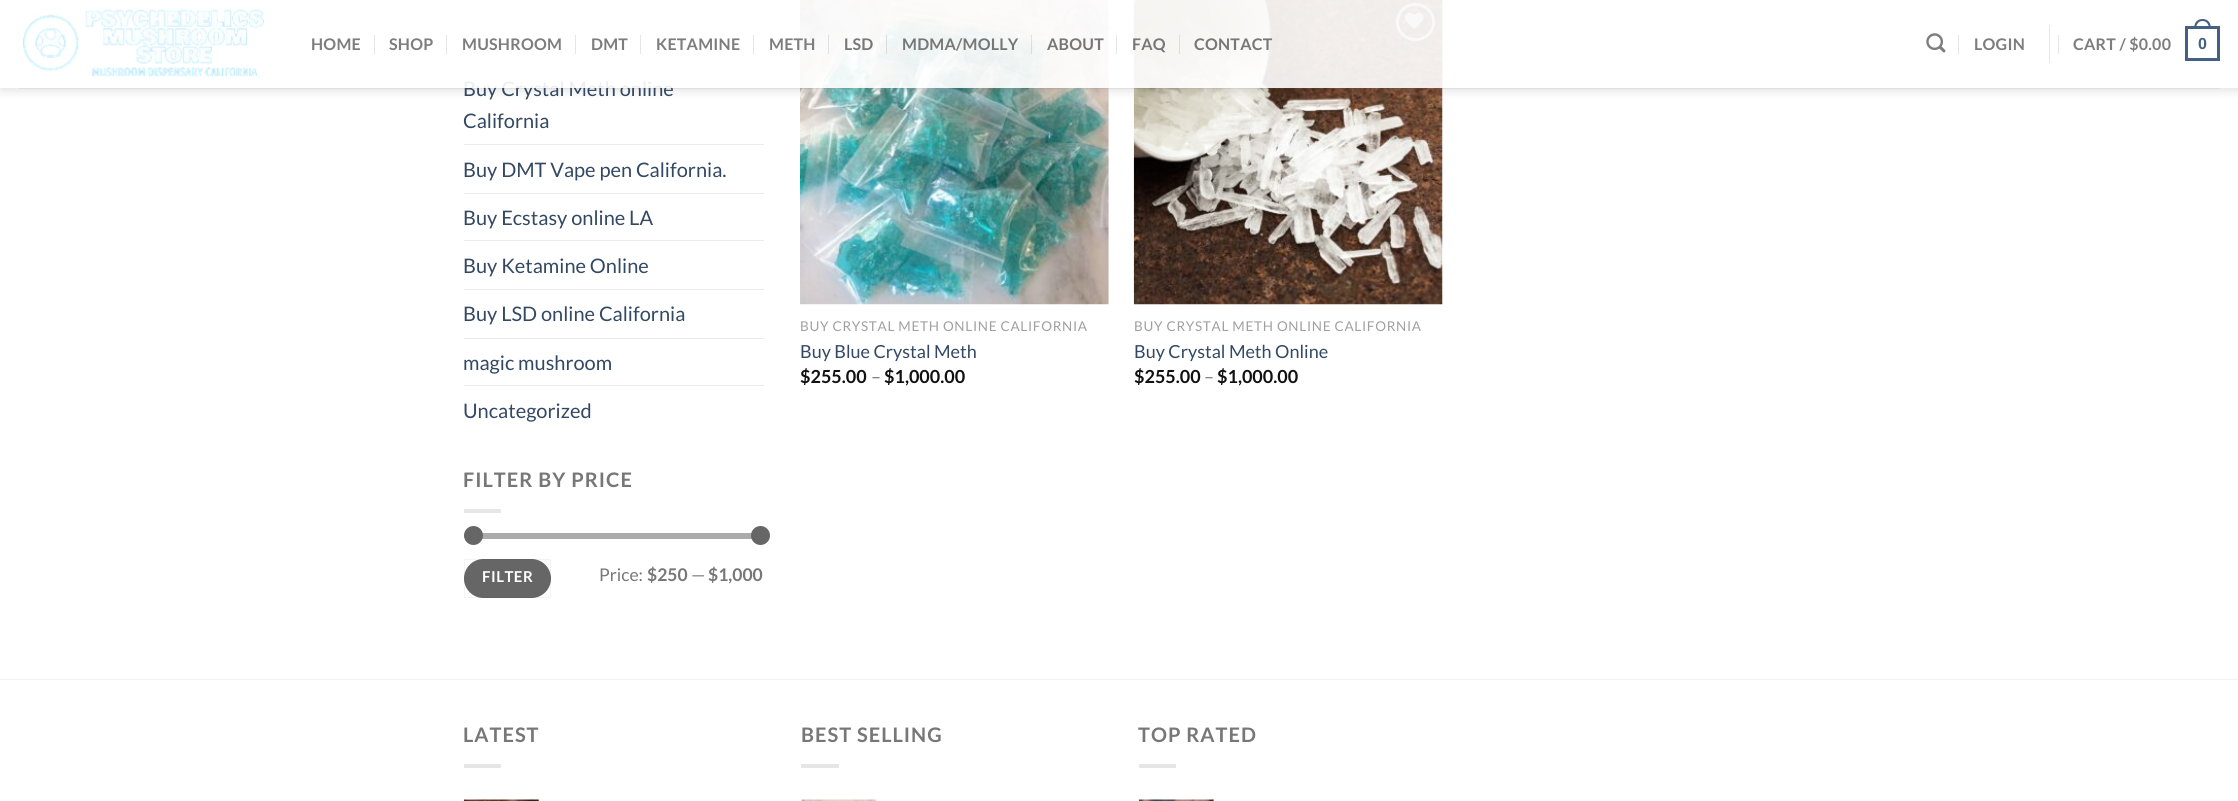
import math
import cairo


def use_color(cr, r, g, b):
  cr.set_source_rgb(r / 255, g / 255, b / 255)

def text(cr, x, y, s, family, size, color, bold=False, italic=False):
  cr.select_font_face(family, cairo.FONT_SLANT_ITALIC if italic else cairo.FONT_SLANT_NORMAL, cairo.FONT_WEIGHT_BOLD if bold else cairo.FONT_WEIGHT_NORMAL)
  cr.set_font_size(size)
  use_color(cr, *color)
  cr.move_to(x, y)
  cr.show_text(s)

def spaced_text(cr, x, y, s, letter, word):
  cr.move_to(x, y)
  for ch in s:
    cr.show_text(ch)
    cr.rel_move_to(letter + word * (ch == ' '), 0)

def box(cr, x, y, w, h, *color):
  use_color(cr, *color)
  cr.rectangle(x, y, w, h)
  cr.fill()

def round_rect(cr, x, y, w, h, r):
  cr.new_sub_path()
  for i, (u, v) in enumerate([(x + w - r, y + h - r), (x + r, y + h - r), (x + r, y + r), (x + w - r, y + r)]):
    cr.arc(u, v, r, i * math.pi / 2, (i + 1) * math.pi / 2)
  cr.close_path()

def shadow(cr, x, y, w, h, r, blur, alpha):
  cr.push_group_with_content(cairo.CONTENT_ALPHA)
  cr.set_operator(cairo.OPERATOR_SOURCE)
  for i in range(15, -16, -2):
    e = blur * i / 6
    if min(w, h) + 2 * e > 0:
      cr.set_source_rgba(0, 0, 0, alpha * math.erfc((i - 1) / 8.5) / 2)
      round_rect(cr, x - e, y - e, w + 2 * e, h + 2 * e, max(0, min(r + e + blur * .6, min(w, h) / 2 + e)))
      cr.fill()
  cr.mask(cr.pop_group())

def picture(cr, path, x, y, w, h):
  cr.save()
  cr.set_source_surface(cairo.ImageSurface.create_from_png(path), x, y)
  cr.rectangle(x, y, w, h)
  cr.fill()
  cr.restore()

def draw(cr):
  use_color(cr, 255, 255, 255)
  cr.paint()
  box(cr, 464, 41, 37, 4, 230, 230, 230)
  picture(cr, "img_03.png", 800, 0, 309, 305)
  cr.arc(1082, 22, 17.5, 0, 2 * math.pi)
  use_color(cr, 192, 192, 192)
  cr.set_line_width(3)
  cr.stroke()
  picture(cr, "img_04.png", 1072, 12, 19, 17)
  picture(cr, "img_05.png", 1133, 0, 310, 305)
  round_rect(cr, 1397.5, 4.5, 36, 35, 17.5)
  cr.stroke()
  picture(cr, "img_06.png", 1405, 12, 19, 17)
  cr.save()
  cr.set_fill_rule(cairo.FILL_RULE_EVEN_ODD)
  cr.new_path()
  cr.move_to(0, 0)
  cr.line_to(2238, 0)
  cr.line_to(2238, 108)
  cr.line_to(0, 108)
  cr.close_path()
  cr.move_to(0, 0)
  cr.line_to(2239, 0)
  cr.line_to(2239, 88)
  cr.line_to(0, 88)
  cr.close_path()
  cr.clip()
  use_color(cr, 0, 0, 0)
  shadow(cr, 1, 1, 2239, 88, 0, 6, 0.15)
  cr.restore()
  cr.set_source_rgba(0.467, 0.467, 0.467, 0.1)
  cr.rectangle(19, 88, 2201, 1)
  cr.fill()
  box(cr, 464, 144, 300, 1, 236, 236, 236)
  box(cr, 464, 193, 300, 1, 236, 236, 236)
  box(cr, 464, 240, 300, 1, 236, 236, 236)
  box(cr, 464, 289, 300, 1, 236, 236, 236)
  box(cr, 464, 338, 300, 1, 236, 236, 236)
  box(cr, 464, 385, 300, 1, 236, 236, 236)
  box(cr, 464, 509, 37, 4, 230, 230, 230)
  use_color(cr, 241, 241, 241)
  round_rect(cr, 464, 533, 300, 6, 3)
  cr.fill()
  cr.set_source_rgba(0.4, 0.4, 0.4, 0.5)
  round_rect(cr, 464, 533, 300, 6, 3)
  cr.fill()
  use_color(cr, 102, 102, 102)
  cr.arc(473.5, 535.5, 9.5, 0, 2 * math.pi)
  cr.fill()
  cr.arc(760.5, 535.5, 9.5, 0, 2 * math.pi)
  cr.fill()
  round_rect(cr, 464, 559, 87, 39, 19.5)
  cr.fill()
  cr.rectangle(464.5, 559.5, 86, 38)
  cr.set_source_rgba(0, 0, 0, 0.05)
  cr.set_line_width(1)
  cr.stroke()
  box(cr, 0, 679, 2238, 1, 242, 242, 242)
  box(cr, 464, 764, 37, 4, 230, 230, 230)
  picture(cr, "img_07.png", 463, 799, 76, 2)
  box(cr, 801, 764, 38, 4, 230, 230, 230)
  picture(cr, "img_08.png", 801, 799, 76, 2)
  box(cr, 1139, 764, 37, 4, 230, 230, 230)
  picture(cr, "img_09.png", 1138, 799, 76, 2)
  text(cr, 463, 96, "Buy Crystal Meth online", "Lato", 20, (51, 72, 98))
  cr.set_source_rgba(1, 1, 1, 0.9)
  cr.rectangle(0, 0, 2238, 88)
  cr.fill()
  box(cr, 2058, 35, 1, 19, 230, 230, 230)
  cr.rectangle(2186.5, 27.5, 32, 32)
  use_color(cr, 68, 96, 132)
  cr.set_line_width(3)
  cr.stroke()
  cr.set_fill_rule(cairo.FILL_RULE_EVEN_ODD)
  cr.new_path()
  cr.move_to(2202.5, 19)
  cr.curve_to(2208.5, 19, 2211, 23.5, 2211, 29)
  cr.line_to(2194, 29)
  cr.curve_to(2194, 23.5, 2196.5, 19, 2202.5, 19)
  cr.close_path()
  cr.move_to(2202.5, 21)
  cr.curve_to(2207, 21, 2209, 25, 2209, 29)
  cr.line_to(2196, 29)
  cr.curve_to(2196, 25, 2198, 21, 2202.5, 21)
  cr.close_path()
  cr.fill()
  cr.select_font_face("Liberation Sans", cairo.FONT_SLANT_NORMAL, cairo.FONT_WEIGHT_BOLD)
  cr.set_font_size(16)
  spaced_text(cr, 2198, 49, "0", 0.25, 0)
  cr.select_font_face("Lato", cairo.FONT_SLANT_NORMAL, cairo.FONT_WEIGHT_BOLD)
  use_color(cr, 125, 125, 125)
  spaced_text(cr, 2073, 50, "CART / $0.00", 0.25, 0)
  box(cr, 2049, 25, 1, 38, 230, 230, 230)
  box(cr, 1958, 35, 1, 19, 230, 230, 230)
  use_color(cr, 125, 125, 125)
  spaced_text(cr, 1974, 50, "LOGIN", 0.25, 0)
  picture(cr, "img_02.png", 1926, 33, 20, 20)
  box(cr, 1179, 35, 1, 19, 222, 221, 219)
  use_color(cr, 119, 119, 119)
  spaced_text(cr, 1194, 50, "CONTACT", 0.25, 0)
  box(cr, 1116, 35, 1, 19, 230, 230, 230)
  use_color(cr, 119, 119, 119)
  spaced_text(cr, 1132, 50, "FAQ", 0.25, 0)
  cr.set_source_rgba(0, 0, 0, 0.1)
  cr.rectangle(1031, 35, 1, 19)
  cr.fill()
  use_color(cr, 119, 119, 119)
  spaced_text(cr, 1047, 50, "ABOUT", 0.25, 0)
  cr.set_source_rgba(0, 0, 0, 0.1)
  cr.rectangle(886, 35, 1, 19)
  cr.fill()
  use_color(cr, 119, 119, 119)
  spaced_text(cr, 902, 50, "MDMA/MOLLY", 0.25, 0)
  box(cr, 828, 35, 1, 19, 225, 224, 224)
  use_color(cr, 119, 119, 119)
  spaced_text(cr, 844, 50, "LSD", 0.25, 0)
  box(cr, 753, 35, 1, 19, 230, 230, 230)
  use_color(cr, 125, 125, 125)
  spaced_text(cr, 769, 50, "METH", 0.25, 0)
  box(cr, 640, 35, 1, 19, 230, 230, 230)
  use_color(cr, 125, 125, 125)
  spaced_text(cr, 656, 50, "KETAMINE", 0.25, 0)
  box(cr, 575, 35, 1, 19, 230, 230, 230)
  use_color(cr, 125, 125, 125)
  spaced_text(cr, 591, 50, "DMT", 0.25, 0)
  box(cr, 446, 35, 1, 19, 230, 230, 230)
  use_color(cr, 125, 125, 125)
  spaced_text(cr, 462, 50, "MUSHROOM", 0.25, 0)
  box(cr, 374, 35, 1, 19, 230, 230, 230)
  use_color(cr, 125, 125, 125)
  spaced_text(cr, 389, 50, "SHOP", 0.25, 0)
  spaced_text(cr, 311, 50, "HOME", 0.25, 0)
  picture(cr, "img_01.png", 23, 9, 241, 68)
  text(cr, 463, 128, "California", "Lato", 20, (51, 72, 98))
  text(cr, 463, 177, "Buy DMT Vape pen California.", "Lato", 20, (51, 72, 98))
  text(cr, 463, 225, "Buy Ecstasy online LA", "Lato", 20, (51, 72, 98))
  text(cr, 463, 273, "Buy Ketamine Online", "Lato", 20, (51, 72, 98))
  text(cr, 463, 321, "Buy LSD online California", "Lato", 20, (51, 72, 98))
  text(cr, 463, 370, "magic mushroom", "Lato", 20, (51, 72, 98))
  text(cr, 463, 418, "Uncategorized", "Lato", 20, (51, 72, 98))
  cr.select_font_face("Lato", cairo.FONT_SLANT_NORMAL, cairo.FONT_WEIGHT_BOLD)
  use_color(cr, 119, 119, 119)
  spaced_text(cr, 463, 487, "FILTER BY PRICE", 1, 0)
  cr.set_font_size(15)
  use_color(cr, 255, 255, 255)
  spaced_text(cr, 482, 582, "FILTER", 0.5, 0)
  text(cr, 599, 581, "Price:", "Lato", 17.5, (119, 119, 119))
  text(cr, 647, 581, "$250", "Lato", 17.5, (119, 119, 119), bold=True)
  text(cr, 691, 581, "—", "Lato", 17.5, (119, 119, 119))
  text(cr, 708, 581, "$1,000", "Lato", 17.5, (119, 119, 119), bold=True)
  cr.select_font_face("Lato")
  cr.set_font_size(13.5)
  use_color(cr, 160, 160, 160)
  spaced_text(cr, 800, 331, "BUY CRYSTAL METH ONLINE CALIFORNIA", 0.7, 0)
  text(cr, 800, 358, "Buy Blue Crystal Meth", "Lato", 18, (51, 72, 98))
  text(cr, 800, 383, "$255.00", "Lato", 18, (17, 17, 17), bold=True)
  text(cr, 871, 383, "–", "Lato", 18, (119, 119, 119))
  text(cr, 884, 383, "$1,000.00", "Lato", 18, (17, 17, 17), bold=True)
  cr.select_font_face("Lato")
  cr.set_font_size(13.5)
  use_color(cr, 160, 160, 160)
  spaced_text(cr, 1134, 331, "BUY CRYSTAL METH ONLINE CALIFORNIA", 0.7, 0)
  text(cr, 1134, 358, "Buy Crystal Meth Online", "Lato", 18, (51, 72, 98))
  text(cr, 1134, 383, "$255.00", "Lato", 18, (17, 17, 17), bold=True)
  text(cr, 1204, 383, "–", "Lato", 18, (119, 119, 119))
  text(cr, 1217, 383, "$1,000.00", "Lato", 18, (17, 17, 17), bold=True)
  cr.set_font_size(20)
  use_color(cr, 119, 119, 119)
  spaced_text(cr, 463, 742, "LATEST", 1, 0)
  spaced_text(cr, 801, 742, "BEST SELLING", 1, 0)
  spaced_text(cr, 1138, 742, "TOP RATED", 1, 0)


surface = cairo.ImageSurface(cairo.FORMAT_RGB24, 2238, 801)
cr = cairo.Context(surface)
options = cairo.FontOptions()
options.set_hint_metrics(cairo.HINT_METRICS_OFF)
options.set_hint_style(cairo.HINT_STYLE_NONE)
cr.set_font_options(options)
cr.set_miter_limit(4)
draw(cr)
surface.write_to_png("out.png")
